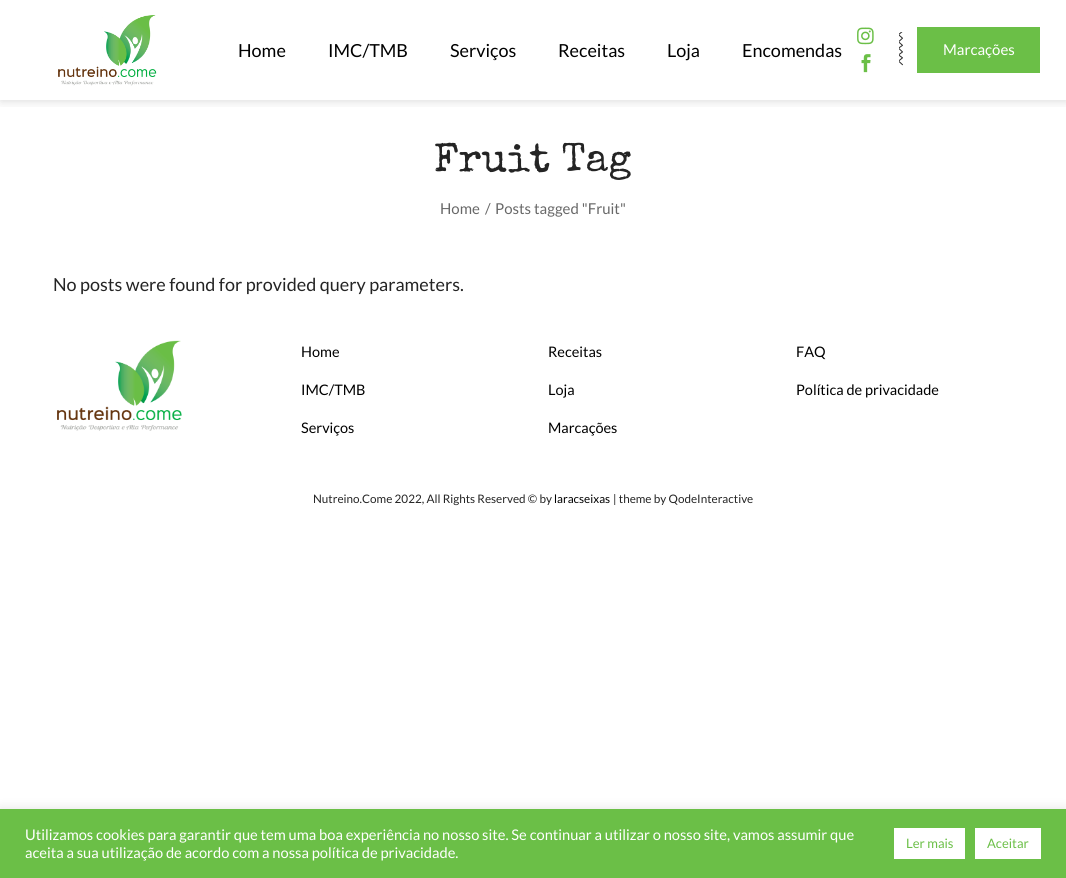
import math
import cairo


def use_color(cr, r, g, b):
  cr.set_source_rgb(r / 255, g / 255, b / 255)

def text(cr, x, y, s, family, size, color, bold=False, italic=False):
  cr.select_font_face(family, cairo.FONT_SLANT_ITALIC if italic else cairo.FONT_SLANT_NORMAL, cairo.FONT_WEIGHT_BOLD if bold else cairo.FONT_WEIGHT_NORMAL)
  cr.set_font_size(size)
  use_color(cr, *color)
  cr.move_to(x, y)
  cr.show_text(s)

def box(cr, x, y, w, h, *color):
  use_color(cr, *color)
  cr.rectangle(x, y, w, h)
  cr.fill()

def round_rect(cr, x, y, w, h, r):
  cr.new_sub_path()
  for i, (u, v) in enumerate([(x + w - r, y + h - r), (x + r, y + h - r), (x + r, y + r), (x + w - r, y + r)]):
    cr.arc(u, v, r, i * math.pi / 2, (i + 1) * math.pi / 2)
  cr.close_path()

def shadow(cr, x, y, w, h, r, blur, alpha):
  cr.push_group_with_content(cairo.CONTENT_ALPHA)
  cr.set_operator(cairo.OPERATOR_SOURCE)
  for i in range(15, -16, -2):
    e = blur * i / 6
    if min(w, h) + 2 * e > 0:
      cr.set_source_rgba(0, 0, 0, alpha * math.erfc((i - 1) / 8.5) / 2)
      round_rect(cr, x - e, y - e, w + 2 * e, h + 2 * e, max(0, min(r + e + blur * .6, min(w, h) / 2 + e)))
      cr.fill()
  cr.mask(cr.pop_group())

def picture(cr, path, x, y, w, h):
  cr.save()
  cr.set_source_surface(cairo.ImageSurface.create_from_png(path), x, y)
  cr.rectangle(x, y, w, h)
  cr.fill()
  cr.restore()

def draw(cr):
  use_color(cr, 255, 255, 255)
  cr.paint()
  cr.save()
  cr.rectangle(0, 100, 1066, 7)
  cr.clip()
  use_color(cr, 0, 0, 0)
  shadow(cr, 1, 1, 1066, 100, 0, 5, 0.15)
  cr.restore()
  picture(cr, "img_01.png", 58, 15, 99, 71)
  picture(cr, "img_02.png", 857, 27, 17, 18)
  picture(cr, "img_03.png", 861, 54, 10, 19)
  picture(cr, "img_04.png", 899, 32, 4, 34)
  box(cr, 917, 27, 123, 46, 107, 191, 71)
  picture(cr, "img_05.png", 57, 340, 125, 91)
  use_color(cr, 172, 171, 171)
  shadow(cr, 0, 808, 1066, 69, 0, 5, 0.3)
  box(cr, 0, 809, 1066, 69, 107, 191, 71)
  box(cr, 894, 828, 71, 31, 255, 255, 255)
  box(cr, 975, 828, 66, 31, 255, 255, 255)
  text(cr, 238, 57, "Home", "Lato", 18, (0, 0, 0))
  text(cr, 328, 57, "IMC/TMB", "Lato", 18, (0, 0, 0))
  text(cr, 450, 57, "Serviços", "Lato", 18, (0, 0, 0))
  text(cr, 558, 57, "Receitas", "Lato", 18, (0, 0, 0))
  text(cr, 667, 57, "Loja", "Lato", 18, (0, 0, 0))
  text(cr, 742, 57, "Encomendas", "Lato", 18, (0, 0, 0))
  text(cr, 943, 55, "Marcações", "Lato", 15, (255, 255, 255))
  text(cr, 434, 171, "Fruit Tag", "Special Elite", 40, (36, 36, 36))
  text(cr, 440, 214, "Home", "Lato", 15, (104, 104, 104))
  text(cr, 485, 214, "/", "Lato", 15, (104, 104, 104))
  text(cr, 495, 214, "Posts tagged \"Fruit\"", "Lato", 15, (104, 104, 104))
  text(cr, 53, 291, "No posts were found for provided query parameters.", "Lato", 18, (36, 36, 36))
  text(cr, 301, 357, "Home", "Lato", 14.5, (0, 0, 0))
  text(cr, 301, 395, "IMC/TMB", "Lato", 14.5, (0, 0, 0))
  text(cr, 301, 433, "Serviços", "Lato", 14.5, (0, 0, 0))
  text(cr, 548, 357, "Receitas", "Lato", 14.5, (0, 0, 0))
  text(cr, 548, 395, "Loja", "Lato", 14.5, (0, 0, 0))
  text(cr, 548, 433, "Marcações", "Lato", 14.5, (0, 0, 0))
  text(cr, 796, 357, "FAQ", "Lato", 14.5, (0, 0, 0))
  text(cr, 796, 395, "Política de privacidade", "Lato", 14.5, (0, 0, 0))
  text(cr, 313, 503, "Nutreino.Come 2022, All Rights Reserved © by", "Lato", 11.7, (36, 36, 36))
  text(cr, 554, 503, "laracseixas", "Lato", 11.7, (0, 0, 0))
  text(cr, 613, 503, "| theme by QodeInteractive", "Lato", 11.7, (36, 36, 36))
  text(cr, 25, 840, "Utilizamos cookies para garantir que tem uma boa experiência no nosso site. Se continuar a utilizar o nosso site, vamos assumir que", "Lato", 14.67, (255, 255, 255))
  text(cr, 25, 858, "aceita a sua utilização de acordo com a nossa política de privacidade.", "Lato", 14.67, (255, 255, 255))
  text(cr, 906, 848, "Ler mais", "Lato", 13, (107, 191, 71))
  text(cr, 987, 848, "Aceitar", "Lato", 13, (107, 191, 71))


surface = cairo.ImageSurface(cairo.FORMAT_RGB24, 1066, 878)
cr = cairo.Context(surface)
options = cairo.FontOptions()
options.set_hint_metrics(cairo.HINT_METRICS_OFF)
options.set_hint_style(cairo.HINT_STYLE_NONE)
cr.set_font_options(options)
cr.set_miter_limit(4)
draw(cr)
surface.write_to_png("out.png")
